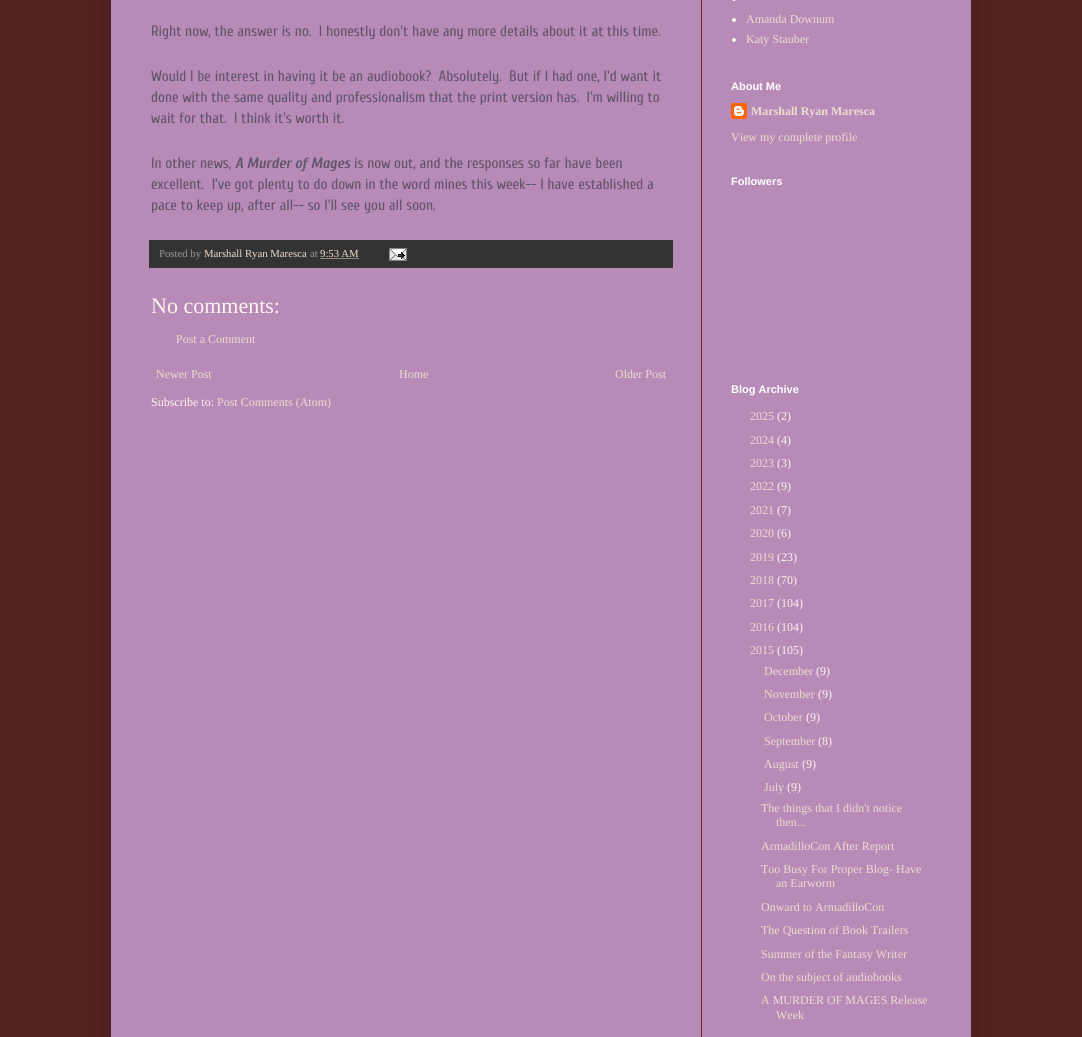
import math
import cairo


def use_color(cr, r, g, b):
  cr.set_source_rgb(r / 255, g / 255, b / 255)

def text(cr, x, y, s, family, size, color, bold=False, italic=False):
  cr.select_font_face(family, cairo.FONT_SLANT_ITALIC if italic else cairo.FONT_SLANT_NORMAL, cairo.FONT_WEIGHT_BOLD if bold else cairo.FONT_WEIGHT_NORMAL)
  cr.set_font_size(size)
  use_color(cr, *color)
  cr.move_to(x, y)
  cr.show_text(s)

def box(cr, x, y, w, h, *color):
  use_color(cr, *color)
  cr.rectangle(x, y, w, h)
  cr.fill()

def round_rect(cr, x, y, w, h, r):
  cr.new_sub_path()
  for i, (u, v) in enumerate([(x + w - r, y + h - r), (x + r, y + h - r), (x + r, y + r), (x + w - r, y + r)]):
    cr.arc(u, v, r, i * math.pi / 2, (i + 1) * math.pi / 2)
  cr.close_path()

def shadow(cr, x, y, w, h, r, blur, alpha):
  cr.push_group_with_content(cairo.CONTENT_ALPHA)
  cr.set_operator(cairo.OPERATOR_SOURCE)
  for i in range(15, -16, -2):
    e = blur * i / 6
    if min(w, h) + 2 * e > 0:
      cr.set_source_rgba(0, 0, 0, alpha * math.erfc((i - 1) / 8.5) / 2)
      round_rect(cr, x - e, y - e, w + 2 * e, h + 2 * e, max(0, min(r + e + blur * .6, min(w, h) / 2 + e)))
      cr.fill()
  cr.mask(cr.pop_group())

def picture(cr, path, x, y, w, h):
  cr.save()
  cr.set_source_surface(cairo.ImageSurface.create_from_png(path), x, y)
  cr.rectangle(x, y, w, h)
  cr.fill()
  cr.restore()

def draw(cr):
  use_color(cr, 85, 34, 34)
  cr.paint()
  use_color(cr, 0, 0, 0)
  shadow(cr, 111, -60, 860, 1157, 0, 20, 0.15)
  box(cr, 111, 0, 860, 1037, 184, 138, 184)
  box(cr, 701, 0, 1, 1037, 119, 34, 34)
  box(cr, 149, 240, 524, 28, 51, 51, 51)
  cr.new_path()
  cr.move_to(320.5, 258.5)
  cr.line_to(359, 258.5)
  use_color(cr, 238, 221, 204)
  cr.set_line_width(1)
  cr.set_dash([1, 1])
  cr.stroke()
  picture(cr, "img_01.png", 389, 248, 18, 13)
  use_color(cr, 255, 245, 238)
  round_rect(cr, 732, -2, 4, 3, 2)
  cr.fill()
  cr.arc(734, 20, 2, 0, 2 * math.pi)
  cr.fill()
  cr.arc(734, 40, 2, 0, 2 * math.pi)
  cr.fill()
  picture(cr, "img_02.png", 731, 103, 16, 16)
  text(cr, 151, 36, "Right now, the answer is no.  I honestly don't have any more details about it at this time.", "Cuprum", 15, (96, 84, 103))
  text(cr, 151, 81, "Would I be interest in having it be an audiobook?  Absolutely.  But if I had one, I'd want it", "Cuprum", 15, (96, 84, 103))
  text(cr, 151, 102, "done with the same quality and professionalism that the print version has.  I'm willing to", "Cuprum", 15, (96, 84, 103))
  text(cr, 151, 123, "wait for that.  I think it's worth it.", "Cuprum", 15, (96, 84, 103))
  text(cr, 151, 168, "In other news,", "Cuprum", 15, (96, 84, 103))
  text(cr, 235, 168, "A Murder of Mages", "Cuprum", 15, (96, 84, 103), bold=True, italic=True)
  text(cr, 354, 168, "is now out, and the responses so far have been", "Cuprum", 15, (96, 84, 103))
  text(cr, 151, 189, "excellent.  I've got plenty to do down in the word mines this week-- I have established a", "Cuprum", 15, (96, 84, 103))
  text(cr, 151, 210, "pace to keep up, after all-- so I'll see you all soon.", "Cuprum", 15, (96, 84, 103))
  text(cr, 159, 257, "Posted by", "Liberation Serif", 10.75, (153, 153, 153))
  text(cr, 204, 257, "Marshall Ryan Maresca", "Liberation Serif", 10.75, (238, 221, 204))
  text(cr, 310, 257, "at", "Liberation Serif", 10.75, (153, 153, 153))
  text(cr, 320, 257, "9:53 AM", "Liberation Serif", 10.75, (238, 221, 204))
  text(cr, 151, 313, "No comments:", "Liberation Serif", 22, (255, 245, 238))
  text(cr, 176, 343, "Post a Comment", "Liberation Serif", 12, (238, 221, 204))
  text(cr, 156, 378, "Newer Post", "Liberation Serif", 12, (238, 221, 204))
  text(cr, 399, 378, "Home", "Liberation Serif", 12, (238, 221, 204))
  text(cr, 615, 378, "Older Post", "Liberation Serif", 12, (238, 221, 204))
  text(cr, 151, 406, "Subscribe to:", "Liberation Serif", 12, (255, 245, 238))
  text(cr, 217, 406, "Post Comments (Atom)", "Liberation Serif", 12, (238, 221, 204))
  text(cr, 746, 23, "Amanda Downum", "Liberation Serif", 12, (238, 221, 204))
  text(cr, 746, 43, "Katy Stauber", "Liberation Serif", 12, (238, 221, 204))
  text(cr, 731, 90, "About Me", "Liberation Sans", 11, (255, 255, 255), bold=True)
  text(cr, 751, 115, "Marshall Ryan Maresca", "Liberation Serif", 12, (238, 221, 204), bold=True)
  text(cr, 731, 141, "View my complete profile", "Liberation Serif", 12, (238, 221, 204))
  text(cr, 731, 185, "Followers", "Liberation Sans", 11, (255, 255, 255), bold=True)
  text(cr, 731, 393, "Blog Archive", "Liberation Sans", 11, (255, 255, 255), bold=True)
  text(cr, 750, 420, "2025", "Liberation Serif", 12, (238, 221, 204))
  text(cr, 777, 420, "(2)", "Liberation Serif", 12, (255, 245, 238))
  text(cr, 750, 444, "2024", "Liberation Serif", 12, (238, 221, 204))
  text(cr, 777, 444, "(4)", "Liberation Serif", 12, (255, 245, 238))
  text(cr, 750, 467, "2023", "Liberation Serif", 12, (238, 221, 204))
  text(cr, 777, 467, "(3)", "Liberation Serif", 12, (255, 245, 238))
  text(cr, 750, 490, "2022", "Liberation Serif", 12, (238, 221, 204))
  text(cr, 777, 490, "(9)", "Liberation Serif", 12, (255, 245, 238))
  text(cr, 750, 514, "2021", "Liberation Serif", 12, (238, 221, 204))
  text(cr, 777, 514, "(7)", "Liberation Serif", 12, (255, 245, 238))
  text(cr, 750, 537, "2020", "Liberation Serif", 12, (238, 221, 204))
  text(cr, 777, 537, "(6)", "Liberation Serif", 12, (255, 245, 238))
  text(cr, 750, 561, "2019", "Liberation Serif", 12, (238, 221, 204))
  text(cr, 777, 561, "(23)", "Liberation Serif", 12, (255, 245, 238))
  text(cr, 750, 584, "2018", "Liberation Serif", 12, (238, 221, 204))
  text(cr, 777, 584, "(70)", "Liberation Serif", 12, (255, 245, 238))
  text(cr, 750, 607, "2017", "Liberation Serif", 12, (238, 221, 204))
  text(cr, 777, 607, "(104)", "Liberation Serif", 12, (255, 245, 238))
  text(cr, 750, 631, "2016", "Liberation Serif", 12, (238, 221, 204))
  text(cr, 777, 631, "(104)", "Liberation Serif", 12, (255, 245, 238))
  text(cr, 750, 654, "2015", "Liberation Serif", 12, (238, 221, 204))
  text(cr, 777, 654, "(105)", "Liberation Serif", 12, (255, 245, 238))
  text(cr, 764, 675, "December", "Liberation Serif", 12, (238, 221, 204))
  text(cr, 816, 675, "(9)", "Liberation Serif", 12, (255, 245, 238))
  text(cr, 764, 698, "November", "Liberation Serif", 12, (238, 221, 204))
  text(cr, 818, 698, "(9)", "Liberation Serif", 12, (255, 245, 238))
  text(cr, 764, 721, "October", "Liberation Serif", 12, (238, 221, 204))
  text(cr, 806, 721, "(9)", "Liberation Serif", 12, (255, 245, 238))
  text(cr, 764, 745, "September", "Liberation Serif", 12, (238, 221, 204))
  text(cr, 818, 745, "(8)", "Liberation Serif", 12, (255, 245, 238))
  text(cr, 764, 768, "August", "Liberation Serif", 12, (238, 221, 204))
  text(cr, 802, 768, "(9)", "Liberation Serif", 12, (255, 245, 238))
  text(cr, 764, 791, "July", "Liberation Serif", 12, (238, 221, 204))
  text(cr, 787, 791, "(9)", "Liberation Serif", 12, (255, 245, 238))
  text(cr, 761, 812, "The things that I didn't notice", "Liberation Serif", 12, (238, 221, 204))
  text(cr, 776, 826, "then...", "Liberation Serif", 12, (238, 221, 204))
  text(cr, 761, 850, "ArmadilloCon After Report", "Liberation Serif", 12, (238, 221, 204))
  text(cr, 761, 873, "Too Busy For Proper Blog- Have", "Liberation Serif", 12, (238, 221, 204))
  text(cr, 776, 887, "an Earworm", "Liberation Serif", 12, (238, 221, 204))
  text(cr, 761, 911, "Onward to ArmadilloCon", "Liberation Serif", 12, (238, 221, 204))
  text(cr, 761, 934, "The Question of Book Trailers", "Liberation Serif", 12, (238, 221, 204))
  text(cr, 761, 958, "Summer of the Fantasy Writer", "Liberation Serif", 12, (238, 221, 204))
  text(cr, 761, 981, "On the subject of audiobooks", "Liberation Serif", 12, (238, 221, 204))
  text(cr, 761, 1004, "A MURDER OF MAGES Release", "Liberation Serif", 12, (238, 221, 204))
  text(cr, 776, 1019, "Week", "Liberation Serif", 12, (238, 221, 204))


surface = cairo.ImageSurface(cairo.FORMAT_RGB24, 1082, 1037)
cr = cairo.Context(surface)
options = cairo.FontOptions()
options.set_hint_metrics(cairo.HINT_METRICS_OFF)
options.set_hint_style(cairo.HINT_STYLE_NONE)
cr.set_font_options(options)
cr.set_miter_limit(4)
draw(cr)
surface.write_to_png("out.png")
